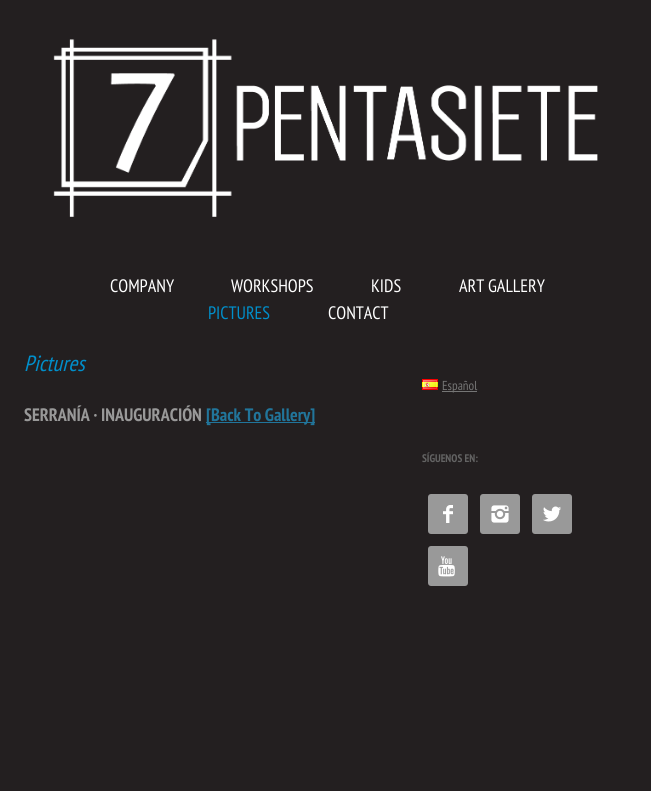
import math
import cairo


def use_color(cr, r, g, b):
  cr.set_source_rgb(r / 255, g / 255, b / 255)

def text(cr, x, y, s, family, size, color, bold=False, italic=False):
  cr.select_font_face(family, cairo.FONT_SLANT_ITALIC if italic else cairo.FONT_SLANT_NORMAL, cairo.FONT_WEIGHT_BOLD if bold else cairo.FONT_WEIGHT_NORMAL)
  cr.set_font_size(size)
  use_color(cr, *color)
  cr.move_to(x, y)
  cr.show_text(s)

def box(cr, x, y, w, h, *color):
  use_color(cr, *color)
  cr.rectangle(x, y, w, h)
  cr.fill()

def round_rect(cr, x, y, w, h, r):
  cr.new_sub_path()
  for i, (u, v) in enumerate([(x + w - r, y + h - r), (x + r, y + h - r), (x + r, y + r), (x + w - r, y + r)]):
    cr.arc(u, v, r, i * math.pi / 2, (i + 1) * math.pi / 2)
  cr.close_path()

def picture(cr, path, x, y, w, h):
  cr.save()
  cr.set_source_surface(cairo.ImageSurface.create_from_png(path), x, y)
  cr.rectangle(x, y, w, h)
  cr.fill()
  cr.restore()

def draw(cr):
  use_color(cr, 35, 31, 32)
  cr.paint()
  picture(cr, "img_01.png", 53, 39, 545, 178)
  box(cr, 206, 422, 109, 1, 33, 117, 155)
  picture(cr, "img_02.png", 422, 379, 16, 11)
  box(cr, 442, 391, 35, 1, 117, 117, 117)
  use_color(cr, 153, 153, 153)
  round_rect(cr, 428, 494, 40, 40, 3)
  cr.fill()
  picture(cr, "img_03.png", 443, 505, 10, 18)
  round_rect(cr, 480, 494, 40, 40, 3)
  cr.fill()
  picture(cr, "img_04.png", 491, 505, 18, 18)
  round_rect(cr, 532, 494, 40, 40, 3)
  cr.fill()
  picture(cr, "img_05.png", 543, 506, 18, 16)
  round_rect(cr, 428, 546, 40, 40, 3)
  cr.fill()
  picture(cr, "img_06.png", 438, 556, 17, 21)
  text(cr, 110, 292, "COMPANY", "PT Sans Narrow", 18, (255, 255, 255))
  text(cr, 231, 292, "WORKSHOPS", "PT Sans Narrow", 18, (255, 255, 255))
  text(cr, 371, 292, "KIDS", "PT Sans Narrow", 18, (255, 255, 255))
  text(cr, 459, 292, "ART GALLERY", "PT Sans Narrow", 18, (255, 255, 255))
  text(cr, 208, 319, "PICTURES", "PT Sans Narrow", 18, (0, 143, 203))
  text(cr, 328, 319, "CONTACT", "PT Sans Narrow", 18, (255, 255, 255))
  text(cr, 24, 371, "Pictures", "PT Sans Narrow", 22, (0, 143, 203), italic=True)
  text(cr, 24, 421, "SERRANÍA · INAUGURACIÓN", "PT Sans Narrow", 18, (153, 153, 153), bold=True)
  text(cr, 206, 421, "[Back To Gallery]", "PT Sans Narrow", 18, (33, 117, 155), bold=True)
  text(cr, 442, 390, "Español", "PT Sans Narrow", 13, (117, 117, 117))
  text(cr, 422, 462, "SÍGUENOS EN:", "PT Sans Narrow", 11, (99, 99, 99), bold=True)


surface = cairo.ImageSurface(cairo.FORMAT_RGB24, 651, 791)
cr = cairo.Context(surface)
options = cairo.FontOptions()
options.set_hint_metrics(cairo.HINT_METRICS_OFF)
options.set_hint_style(cairo.HINT_STYLE_NONE)
cr.set_font_options(options)
cr.set_miter_limit(4)
draw(cr)
surface.write_to_png("out.png")
